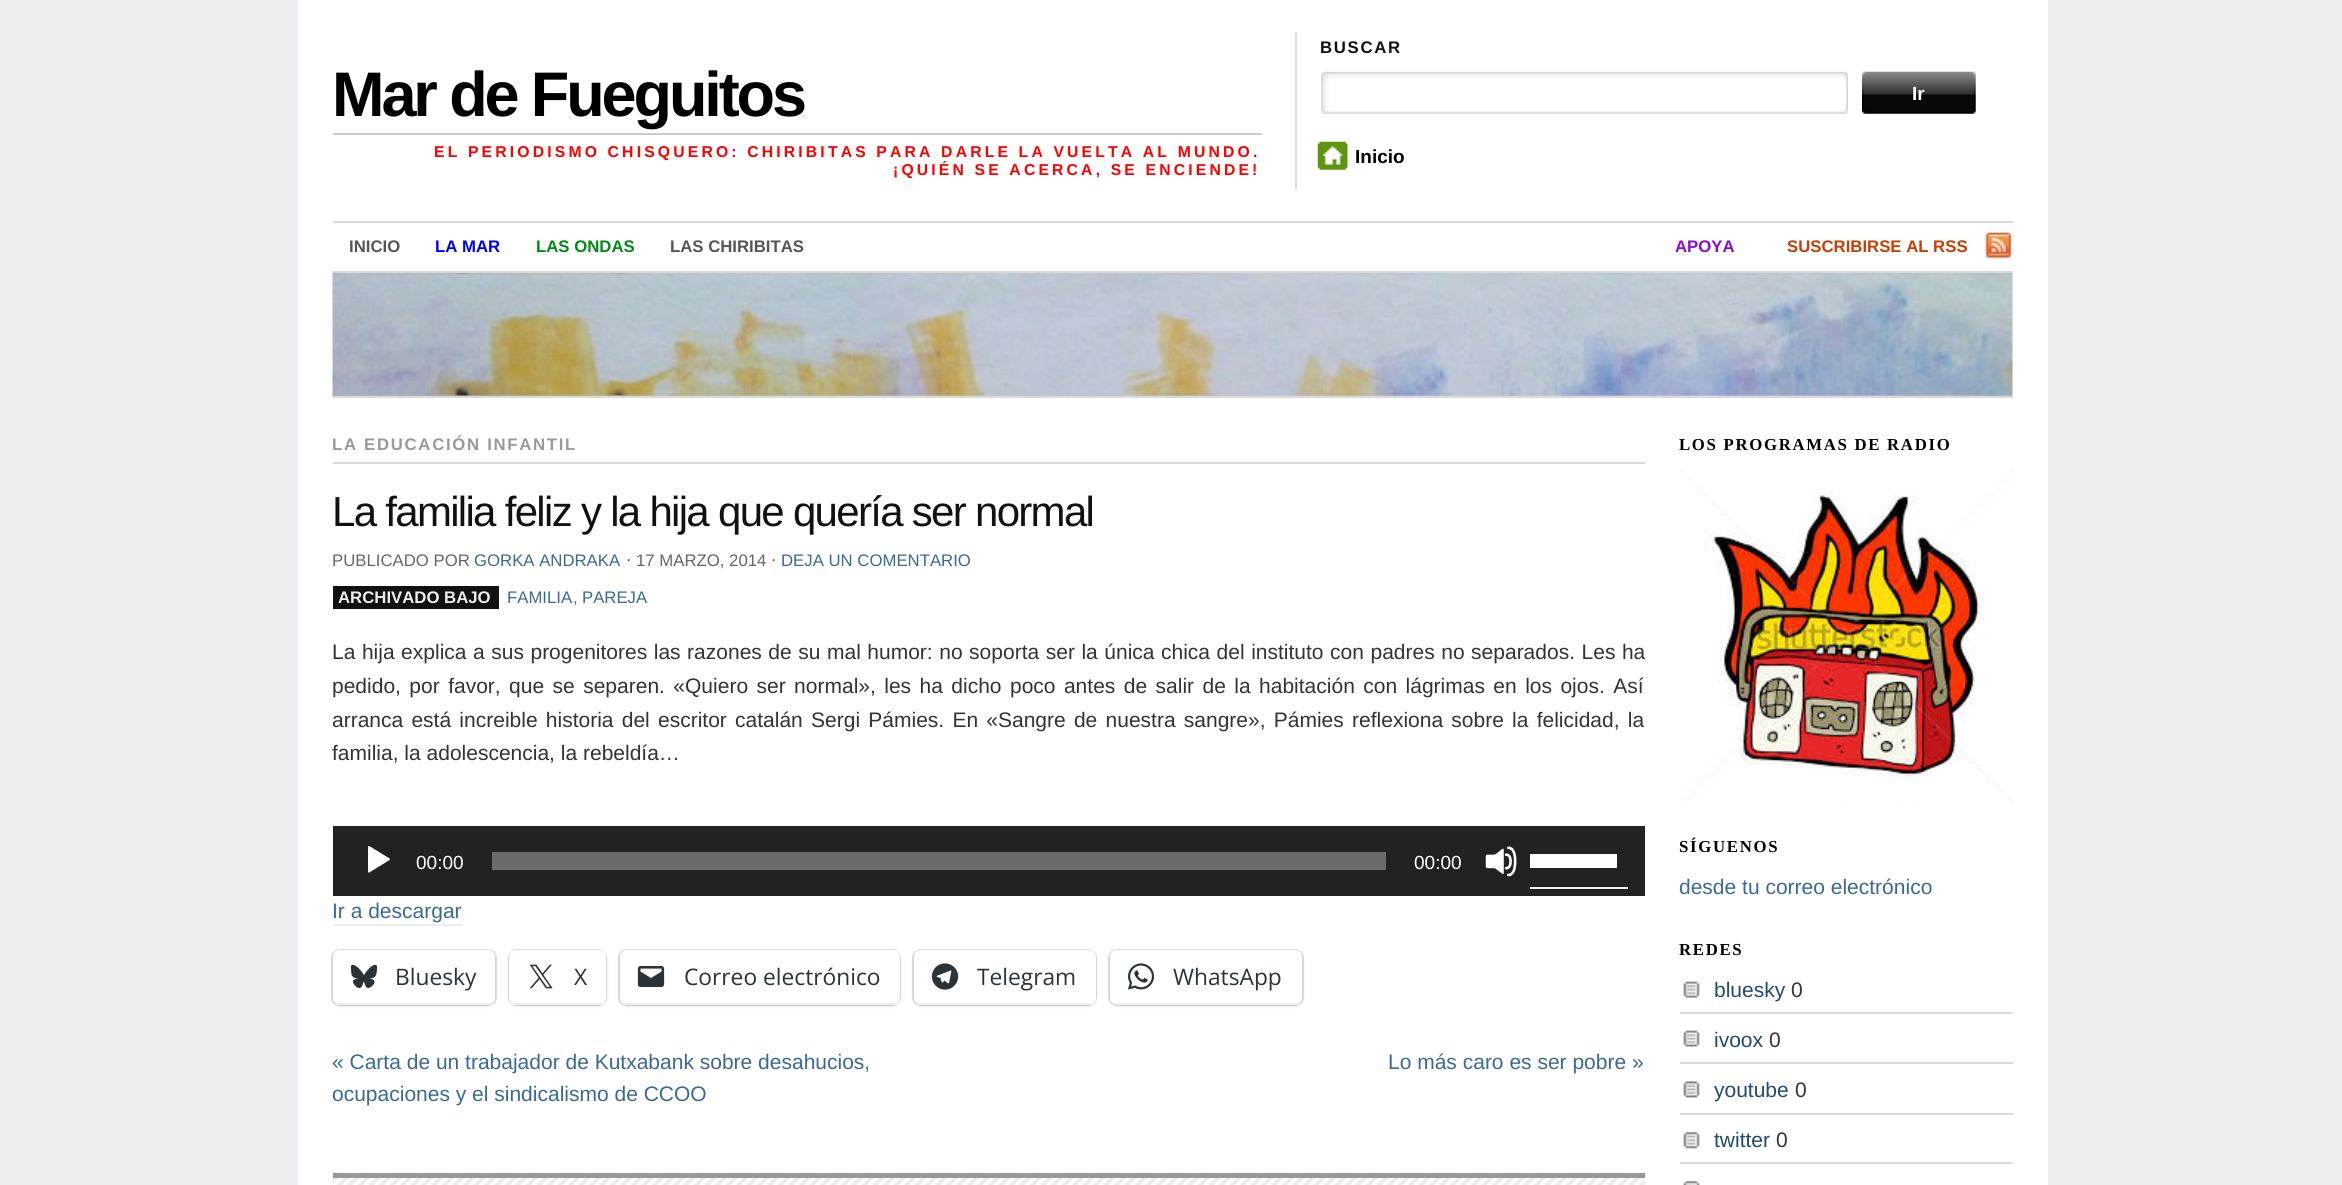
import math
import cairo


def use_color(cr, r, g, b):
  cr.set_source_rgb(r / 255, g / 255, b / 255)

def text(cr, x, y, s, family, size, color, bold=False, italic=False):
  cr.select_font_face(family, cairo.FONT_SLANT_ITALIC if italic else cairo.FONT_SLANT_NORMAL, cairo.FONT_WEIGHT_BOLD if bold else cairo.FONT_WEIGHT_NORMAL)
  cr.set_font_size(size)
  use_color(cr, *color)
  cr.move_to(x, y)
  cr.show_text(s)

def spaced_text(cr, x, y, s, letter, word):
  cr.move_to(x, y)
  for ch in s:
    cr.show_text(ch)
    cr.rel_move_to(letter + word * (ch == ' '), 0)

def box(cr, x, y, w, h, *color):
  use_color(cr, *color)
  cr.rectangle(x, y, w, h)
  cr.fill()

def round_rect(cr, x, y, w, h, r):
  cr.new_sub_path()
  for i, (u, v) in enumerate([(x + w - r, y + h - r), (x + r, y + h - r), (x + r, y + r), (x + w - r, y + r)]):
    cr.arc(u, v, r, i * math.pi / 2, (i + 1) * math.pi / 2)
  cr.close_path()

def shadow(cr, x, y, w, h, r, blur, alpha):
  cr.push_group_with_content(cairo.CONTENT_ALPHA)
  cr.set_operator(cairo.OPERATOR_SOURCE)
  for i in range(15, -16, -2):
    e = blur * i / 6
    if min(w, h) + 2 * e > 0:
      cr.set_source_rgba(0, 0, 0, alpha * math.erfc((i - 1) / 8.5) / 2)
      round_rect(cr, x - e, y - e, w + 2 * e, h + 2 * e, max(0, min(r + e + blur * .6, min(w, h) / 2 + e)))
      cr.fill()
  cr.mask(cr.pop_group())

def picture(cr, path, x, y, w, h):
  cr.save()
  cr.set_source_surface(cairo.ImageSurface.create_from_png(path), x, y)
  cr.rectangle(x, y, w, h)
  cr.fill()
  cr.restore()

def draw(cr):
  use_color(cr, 235, 239, 242)
  cr.paint()
  box(cr, 298, 0, 1750, 1185, 255, 255, 255)
  box(cr, 333, 133, 929, 2, 204, 204, 204)
  box(cr, 1295, 32, 2, 157, 221, 221, 221)
  picture(cr, "img_01.png", 1321, 71, 527, 43)
  picture(cr, "img_02.png", 1862, 71, 114, 43)
  picture(cr, "img_03.png", 1317, 141, 31, 29)
  box(cr, 333, 221, 1680, 2, 218, 218, 218)
  picture(cr, "img_04.png", 1984, 232, 29, 27)
  picture(cr, "img_05.png", 332, 271, 1681, 127)
  box(cr, 333, 271, 1680, 2, 218, 218, 218)
  box(cr, 333, 396, 1680, 2, 218, 218, 218)
  box(cr, 333, 462, 1312, 2, 218, 218, 218)
  box(cr, 333, 586, 166, 23, 17, 17, 17)
  box(cr, 333, 826, 1312, 70, 34, 34, 34)
  picture(cr, "img_06.png", 368, 846, 22, 27)
  box(cr, 492, 852, 894, 18, 107, 107, 107)
  picture(cr, "img_07.png", 1485, 846, 32, 31)
  box(cr, 1530, 887, 98, 2, 238, 238, 238)
  box(cr, 1530, 854, 87, 14, 255, 255, 255)
  box(cr, 333, 924, 129, 2, 238, 238, 238)
  round_rect(cr, 332, 950, 164, 55, 8)
  use_color(cr, 224, 224, 224)
  cr.stroke()
  use_color(cr, 0, 0, 0)
  shadow(cr, 333, 952, 162, 54, 7, 2, 0.12)
  use_color(cr, 255, 255, 255)
  round_rect(cr, 333, 950, 162, 55, 7)
  cr.fill()
  box(cr, 336, 1003, 156, 2, 238, 238, 238)
  picture(cr, "img_08.png", 350, 964, 28, 24)
  round_rect(cr, 509, 950, 97, 55, 8)
  use_color(cr, 224, 224, 224)
  cr.stroke()
  use_color(cr, 0, 0, 0)
  shadow(cr, 509, 952, 97, 54, 7, 2, 0.12)
  use_color(cr, 255, 255, 255)
  round_rect(cr, 509, 950, 97, 55, 7)
  cr.fill()
  box(cr, 513, 1003, 89, 2, 238, 238, 238)
  picture(cr, "img_09.png", 529, 964, 24, 25)
  round_rect(cr, 619, 950, 281, 55, 8)
  use_color(cr, 224, 224, 224)
  cr.stroke()
  use_color(cr, 0, 0, 0)
  shadow(cr, 620, 952, 280, 54, 7, 2, 0.12)
  use_color(cr, 255, 255, 255)
  round_rect(cr, 620, 950, 280, 55, 7)
  cr.fill()
  box(cr, 623, 1003, 273, 2, 238, 238, 238)
  picture(cr, "img_10.png", 637, 966, 28, 21)
  round_rect(cr, 913, 950, 183, 55, 8)
  use_color(cr, 224, 224, 224)
  cr.stroke()
  use_color(cr, 0, 0, 0)
  shadow(cr, 914, 952, 182, 54, 7, 2, 0.12)
  use_color(cr, 255, 255, 255)
  round_rect(cr, 914, 950, 182, 55, 7)
  cr.fill()
  box(cr, 917, 1003, 175, 2, 238, 238, 238)
  picture(cr, "img_11.png", 931, 963, 28, 27)
  round_rect(cr, 1109, 950, 194, 55, 8)
  use_color(cr, 224, 224, 224)
  cr.stroke()
  use_color(cr, 0, 0, 0)
  shadow(cr, 1110, 952, 192, 54, 7, 2, 0.12)
  use_color(cr, 255, 255, 255)
  round_rect(cr, 1110, 950, 192, 55, 7)
  cr.fill()
  box(cr, 1113, 1003, 186, 2, 238, 238, 238)
  picture(cr, "img_12.png", 1128, 963, 27, 27)
  picture(cr, "img_13.png", 332, 1172, 1313, 13)
  box(cr, 333, 1173, 1312, 5, 153, 153, 153)
  picture(cr, "img_14.png", 1680, 469, 333, 333)
  picture(cr, "img_15.png", 1683, 981, 17, 17)
  box(cr, 1680, 1012, 333, 2, 218, 218, 218)
  picture(cr, "img_15.png", 1683, 1030, 17, 17)
  box(cr, 1680, 1062, 333, 2, 218, 218, 218)
  picture(cr, "img_16.png", 1683, 1081, 17, 17)
  box(cr, 1680, 1113, 333, 2, 218, 218, 218)
  picture(cr, "img_17.png", 1683, 1131, 17, 18)
  box(cr, 1680, 1162, 333, 2, 218, 218, 218)
  picture(cr, "img_18.png", 1683, 1180, 17, 5)
  cr.select_font_face("Liberation Sans", cairo.FONT_SLANT_NORMAL, cairo.FONT_WEIGHT_BOLD)
  cr.set_font_size(63)
  use_color(cr, 0, 0, 0)
  spaced_text(cr, 332, 116, "Mar de Fueguitos", -3.1, 0)
  cr.set_font_size(15.75)
  use_color(cr, 255, 0, 0)
  spaced_text(cr, 434, 157, "EL PERIODISMO CHISQUERO: CHIRIBITAS PARA DARLE LA VUELTA AL MUNDO.", 3.15, 0)
  spaced_text(cr, 893, 175, "¡QUIÉN SE ACERCA, SE ENCIENDE!", 3.15, 0)
  cr.set_font_size(16.75)
  use_color(cr, 17, 17, 17)
  spaced_text(cr, 1320, 53, "BUSCAR", 1.7, 0)
  text(cr, 1912, 100, "Ir", "Liberation Sans", 19, (255, 255, 255), bold=True)
  text(cr, 1355, 163, "Inicio", "Liberation Sans", 19, (0, 0, 0), bold=True)
  text(cr, 349, 252, "INICIO", "Liberation Sans", 16.75, (85, 85, 85), bold=True)
  text(cr, 435, 252, "LA MAR", "Liberation Sans", 16.75, (0, 0, 255), bold=True)
  text(cr, 536, 252, "LAS ONDAS", "Liberation Sans", 16.75, (0, 139, 23), bold=True)
  text(cr, 670, 252, "LAS CHIRIBITAS", "Liberation Sans", 16.75, (85, 85, 85), bold=True)
  text(cr, 1675, 252, "APOYA", "Liberation Sans", 16.75, (136, 12, 219), bold=True)
  text(cr, 1787, 252, "SUSCRIBIRSE AL RSS", "Liberation Sans", 16.75, (198, 63, 0), bold=True)
  use_color(cr, 153, 153, 153)
  spaced_text(cr, 332, 450, "LA EDUCACIÓN INFANTIL", 1.7, 0)
  cr.select_font_face("Liberation Sans")
  cr.set_font_size(42)
  use_color(cr, 17, 17, 17)
  spaced_text(cr, 332, 526, "La familia feliz y la hija que quería ser normal", -1.7, 0)
  text(cr, 332, 566, "PUBLICADO POR", "Liberation Sans", 16.75, (102, 102, 102))
  text(cr, 474, 566, "GORKA ANDRAKA", "Liberation Sans", 16.75, (58, 105, 153))
  text(cr, 626, 566, "⋅", "DejaVu Sans", 16.75, (102, 102, 102))
  text(cr, 636, 566, "17 MARZO, 2014", "Liberation Sans", 16.75, (102, 102, 102))
  text(cr, 771, 566, "⋅", "DejaVu Sans", 16.75, (102, 102, 102))
  text(cr, 781, 566, "DEJA UN COMENTARIO", "Liberation Sans", 16.75, (58, 105, 153))
  text(cr, 338, 603, "ARCHIVADO BAJO", "Liberation Sans", 16.75, (238, 238, 238), bold=True)
  text(cr, 507, 603, "FAMILIA", "Liberation Sans", 16.75, (58, 105, 153))
  text(cr, 573, 603, ",", "Liberation Sans", 16.75, (102, 102, 102))
  text(cr, 582, 603, "PAREJA", "Liberation Sans", 16.75, (58, 105, 153))
  cr.set_font_size(21)
  use_color(cr, 51, 51, 51)
  spaced_text(cr, 332, 659, "La hija explica a sus progenitores las razones de su mal humor: no soporta ser la única chica del instituto con padres no separados. Les ha", 0, 0.7)
  spaced_text(cr, 332, 693, "pedido, por favor, que se separen. «Quiero ser normal», les ha dicho poco antes de salir de la habitación con lágrimas en los ojos. Así", 0, 2.6)
  spaced_text(cr, 332, 727, "arranca está increible historia del escritor catalán Sergi Pámies. En «Sangre de nuestra sangre», Pámies reflexiona sobre la felicidad, la", 0, 2.4)
  text(cr, 332, 760, "familia, la adolescencia, la rebeldía…", "Liberation Sans", 21, (51, 51, 51))
  text(cr, 416, 869, "00:00", "Liberation Sans", 19, (255, 255, 255))
  text(cr, 1414, 869, "00:00", "Liberation Sans", 19, (255, 255, 255))
  text(cr, 332, 918, "Ir a descargar", "Liberation Sans", 21, (58, 105, 153))
  text(cr, 395, 985, "Bluesky", "Open Sans", 22.75, (44, 51, 56))
  text(cr, 574, 985, "X", "Open Sans", 22.75, (44, 51, 56))
  text(cr, 684, 985, "Correo electrónico", "Open Sans", 22.75, (44, 51, 56))
  text(cr, 977, 985, "Telegram", "Open Sans", 22.75, (44, 51, 56))
  text(cr, 1173, 985, "WhatsApp", "Open Sans", 22.75, (44, 51, 56))
  text(cr, 332, 1069, "« Carta de un trabajador de Kutxabank sobre desahucios,", "Liberation Sans", 21, (58, 105, 153))
  text(cr, 332, 1101, "ocupaciones y el sindicalismo de CCOO", "Liberation Sans", 21, (58, 105, 153))
  text(cr, 1388, 1069, "Lo más caro es ser pobre »", "Liberation Sans", 21, (58, 105, 153))
  cr.select_font_face("Liberation Serif", cairo.FONT_SLANT_NORMAL, cairo.FONT_WEIGHT_BOLD)
  cr.set_font_size(16.75)
  use_color(cr, 0, 0, 0)
  spaced_text(cr, 1679, 450, "LOS PROGRAMAS DE RADIO", 1.7, 0)
  spaced_text(cr, 1679, 852, "SÍGUENOS", 1.7, 0)
  text(cr, 1679, 894, "desde tu correo electrónico", "Liberation Sans", 21, (58, 105, 153))
  cr.select_font_face("Liberation Serif", cairo.FONT_SLANT_NORMAL, cairo.FONT_WEIGHT_BOLD)
  cr.set_font_size(16.75)
  use_color(cr, 0, 0, 0)
  spaced_text(cr, 1679, 955, "REDES", 1.7, 0)
  text(cr, 1714, 997, "bluesky", "Liberation Sans", 21, (34, 73, 112))
  text(cr, 1791, 997, "0", "Liberation Sans", 21, (51, 51, 51))
  text(cr, 1714, 1047, "ivoox", "Liberation Sans", 21, (34, 73, 112))
  text(cr, 1769, 1047, "0", "Liberation Sans", 21, (51, 51, 51))
  text(cr, 1714, 1097, "youtube", "Liberation Sans", 21, (34, 73, 112))
  text(cr, 1795, 1097, "0", "Liberation Sans", 21, (51, 51, 51))
  text(cr, 1714, 1147, "twitter", "Liberation Sans", 21, (34, 73, 112))
  text(cr, 1776, 1147, "0", "Liberation Sans", 21, (51, 51, 51))


surface = cairo.ImageSurface(cairo.FORMAT_RGB24, 2342, 1185)
cr = cairo.Context(surface)
options = cairo.FontOptions()
options.set_hint_metrics(cairo.HINT_METRICS_OFF)
options.set_hint_style(cairo.HINT_STYLE_NONE)
cr.set_font_options(options)
cr.set_miter_limit(4)
draw(cr)
surface.write_to_png("out.png")
